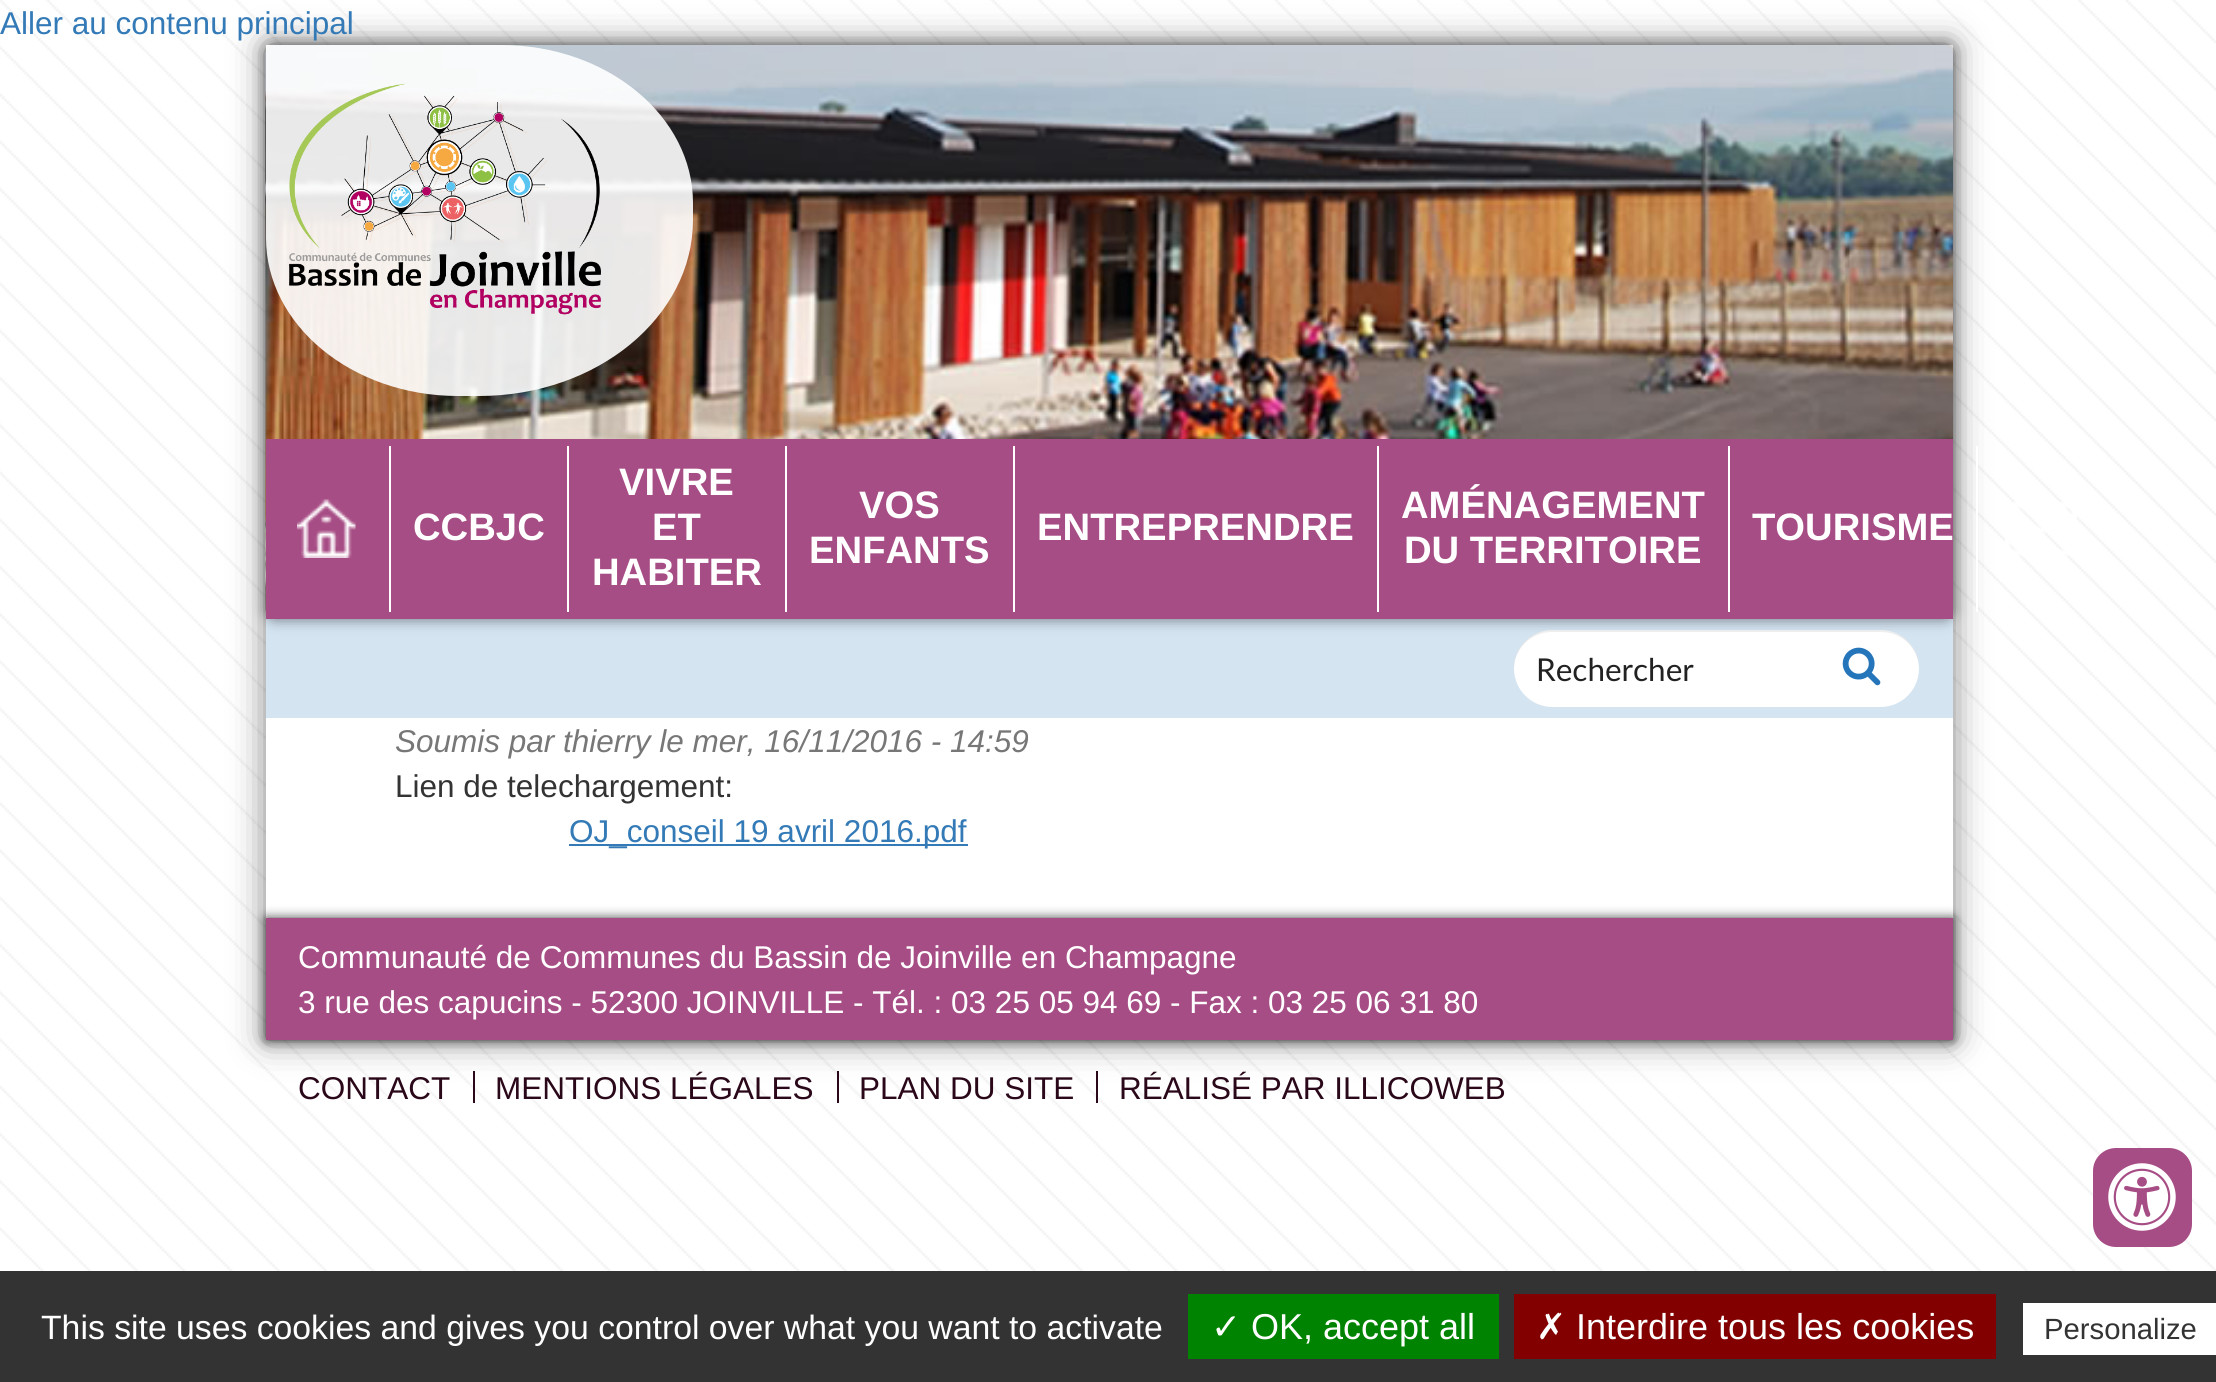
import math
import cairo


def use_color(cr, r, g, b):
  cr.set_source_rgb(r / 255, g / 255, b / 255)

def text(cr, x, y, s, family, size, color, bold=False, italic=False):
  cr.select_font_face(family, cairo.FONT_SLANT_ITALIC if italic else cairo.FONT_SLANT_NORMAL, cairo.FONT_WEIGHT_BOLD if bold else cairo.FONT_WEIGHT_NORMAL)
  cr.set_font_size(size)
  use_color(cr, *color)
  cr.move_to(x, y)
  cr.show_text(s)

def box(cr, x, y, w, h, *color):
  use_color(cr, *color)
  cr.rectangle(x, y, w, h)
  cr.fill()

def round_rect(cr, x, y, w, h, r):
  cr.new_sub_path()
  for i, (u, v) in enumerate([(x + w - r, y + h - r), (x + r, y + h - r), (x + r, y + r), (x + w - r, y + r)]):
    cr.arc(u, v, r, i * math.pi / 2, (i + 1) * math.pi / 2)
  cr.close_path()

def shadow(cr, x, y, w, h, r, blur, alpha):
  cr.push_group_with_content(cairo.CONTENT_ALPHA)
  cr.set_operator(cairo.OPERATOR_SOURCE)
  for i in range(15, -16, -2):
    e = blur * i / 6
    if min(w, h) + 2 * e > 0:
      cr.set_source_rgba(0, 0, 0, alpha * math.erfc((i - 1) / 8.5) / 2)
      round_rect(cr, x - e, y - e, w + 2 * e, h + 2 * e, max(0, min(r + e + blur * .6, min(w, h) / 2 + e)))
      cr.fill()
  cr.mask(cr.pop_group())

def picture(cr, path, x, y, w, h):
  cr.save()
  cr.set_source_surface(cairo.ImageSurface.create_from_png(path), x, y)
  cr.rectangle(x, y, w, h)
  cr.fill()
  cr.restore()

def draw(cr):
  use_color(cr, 255, 255, 255)
  cr.paint()
  picture(cr, "img_01.png", 0, 0, 2216, 1271)
  use_color(cr, 0, 0, 0)
  shadow(cr, 266, 45, 1687, 995, 0, 17, 0.5)
  box(cr, 266, 45, 1687, 873, 255, 255, 255)
  box(cr, 266, 619, 1687, 99, 212, 228, 241)
  use_color(cr, 0, 0, 0)
  shadow(cr, 266, 45, 1687, 574, 9, 7, 0.5)
  picture(cr, "img_02.png", 265, 45, 1688, 567)
  cr.set_source_rgba(1, 1, 1, 0.9)
  cr.new_path()
  cr.move_to(266, 45)
  cr.line_to(501, 45)
  cr.curve_to(607, 45, 693, 116, 693, 203)
  cr.line_to(693, 220)
  cr.curve_to(693, 317, 597, 396, 479, 396)
  cr.line_to(458, 396)
  cr.curve_to(352, 396, 266, 325, 266, 238)
  cr.close_path()
  cr.fill()
  picture(cr, "img_03.png", 289, 83, 312, 232)
  box(cr, 266, 439, 1687, 180, 167, 77, 133)
  box(cr, 389, 446, 2, 166, 255, 255, 255)
  picture(cr, "img_04.png", 297, 499, 59, 59)
  box(cr, 567, 446, 2, 166, 255, 255, 255)
  box(cr, 785, 446, 2, 166, 255, 255, 255)
  box(cr, 1013, 446, 2, 166, 255, 255, 255)
  box(cr, 1377, 446, 2, 166, 255, 255, 255)
  box(cr, 1728, 446, 2, 166, 255, 255, 255)
  box(cr, 1976, 446, 2, 166, 255, 255, 255)
  picture(cr, "img_05.png", 2005, 502, 72, 54)
  round_rect(cr, 1514, 630, 405, 77, 38.5)
  cr.fill()
  cr.set_source_rgba(0, 0, 0, 0.07)
  cr.new_path()
  cr.move_to(1552, 632)
  cr.line_to(1881, 632)
  cr.curve_to(1902, 632, 1919, 649, 1919, 669)
  cr.line_to(1919, 668)
  cr.curve_to(1919, 647, 1902, 630, 1880, 630)
  cr.line_to(1552, 630)
  cr.curve_to(1531, 630, 1514, 647, 1514, 668)
  cr.line_to(1514, 669)
  cr.curve_to(1514, 649, 1531, 632, 1552, 632)
  cr.close_path()
  cr.fill()
  picture(cr, "img_06.png", 1842, 647, 39, 39)
  box(cr, 569, 844, 399, 2, 51, 122, 183)
  use_color(cr, 0, 0, 0)
  shadow(cr, 266, 918, 1687, 122, 0, 5.5, 0.75)
  box(cr, 266, 918, 1687, 122, 167, 77, 133)
  box(cr, 473, 1071, 2, 32, 42, 8, 25)
  box(cr, 837, 1071, 2, 32, 42, 8, 25)
  box(cr, 1096, 1071, 2, 32, 42, 8, 25)
  use_color(cr, 167, 77, 133)
  round_rect(cr, 2093, 1148, 99, 99, 23)
  cr.fill()
  picture(cr, "img_07.png", 2108, 1163, 68, 68)
  box(cr, 0, 1271, 2216, 111, 51, 51, 51)
  box(cr, 1188, 1294, 311, 65, 0, 131, 0)
  box(cr, 1514, 1294, 482, 65, 131, 0, 0)
  box(cr, 2023, 1303, 193, 52, 255, 255, 255)
  text(cr, 0, 34, "Aller au contenu principal", "Liberation Sans", 31.5, (51, 122, 183))
  text(cr, 413, 540, "CCBJC", "Liberation Sans", 38.25, (255, 255, 255), bold=True)
  text(cr, 619, 495, "VIVRE", "Liberation Sans", 38.25, (255, 255, 255), bold=True)
  text(cr, 652, 540, "ET", "Liberation Sans", 38.25, (255, 255, 255), bold=True)
  text(cr, 592, 585, "HABITER", "Liberation Sans", 38.25, (255, 255, 255), bold=True)
  text(cr, 859, 518, "VOS", "Liberation Sans", 38.25, (255, 255, 255), bold=True)
  text(cr, 809, 563, "ENFANTS", "Liberation Sans", 38.25, (255, 255, 255), bold=True)
  text(cr, 1037, 540, "ENTREPRENDRE", "Liberation Sans", 38.25, (255, 255, 255), bold=True)
  text(cr, 1401, 518, "AMÉNAGEMENT", "Liberation Sans", 38.25, (255, 255, 255), bold=True)
  text(cr, 1404, 563, "DU TERRITOIRE", "Liberation Sans", 38.25, (255, 255, 255), bold=True)
  text(cr, 1752, 540, "TOURISME", "Liberation Sans", 38.25, (255, 255, 255), bold=True)
  text(cr, 1536, 681, "Rechercher", "Lato", 31.5, (34, 34, 34))
  text(cr, 395, 752, "Soumis par thierry le mer, 16/11/2016 - 14:59", "Liberation Sans", 31.5, (119, 119, 119), italic=True)
  text(cr, 395, 797, "Lien de telechargement:", "Liberation Sans", 31.5, (51, 51, 51))
  text(cr, 569, 842, "OJ_conseil 19 avril 2016.pdf", "Liberation Sans", 31.5, (51, 122, 183))
  text(cr, 298, 968, "Communauté de Communes du Bassin de Joinville en Champagne", "Liberation Sans", 31.5, (255, 255, 255))
  text(cr, 298, 1013, "3 rue des capucins - 52300 JOINVILLE - Tél. : 03 25 05 94 69 - Fax : 03 25 06 31 80", "Liberation Sans", 31.5, (255, 255, 255))
  text(cr, 298, 1099, "CONTACT", "Liberation Sans", 31.5, (42, 8, 25))
  text(cr, 495, 1099, "MENTIONS LÉGALES", "Liberation Sans", 31.5, (42, 8, 25))
  text(cr, 859, 1099, "PLAN DU SITE", "Liberation Sans", 31.5, (42, 8, 25))
  text(cr, 1119, 1099, "RÉALISÉ PAR ILLICOWEB", "Liberation Sans", 31.5, (42, 8, 25))
  text(cr, 41, 1339, "This site uses cookies and gives you control over what you want to activate", "Liberation Sans", 33.75, (255, 255, 255))
  text(cr, 1211, 1339, "✓", "DejaVu Sans", 36, (255, 255, 255))
  text(cr, 1251, 1339, "OK, accept all", "Liberation Sans", 36, (255, 255, 255))
  text(cr, 1536, 1339, "✗", "DejaVu Sans", 36, (255, 255, 255))
  text(cr, 1576, 1339, "Interdire tous les cookies", "Liberation Sans", 36, (255, 255, 255))
  text(cr, 2044, 1339, "Personalize", "Liberation Sans", 29.25, (51, 51, 51))


surface = cairo.ImageSurface(cairo.FORMAT_RGB24, 2216, 1382)
cr = cairo.Context(surface)
options = cairo.FontOptions()
options.set_hint_metrics(cairo.HINT_METRICS_OFF)
options.set_hint_style(cairo.HINT_STYLE_NONE)
cr.set_font_options(options)
cr.set_miter_limit(4)
draw(cr)
surface.write_to_png("out.png")
